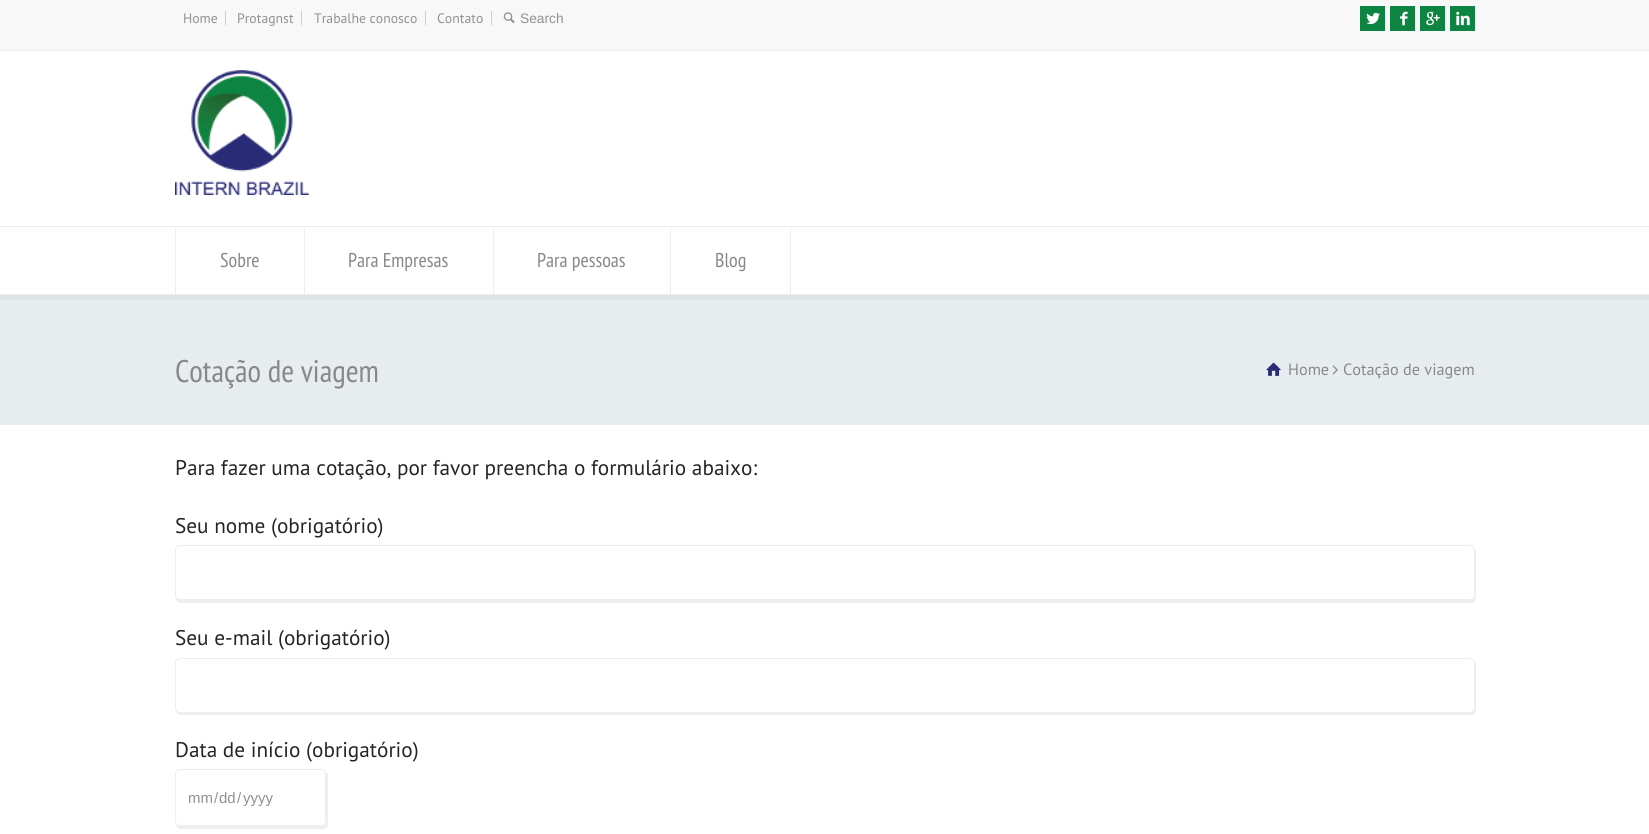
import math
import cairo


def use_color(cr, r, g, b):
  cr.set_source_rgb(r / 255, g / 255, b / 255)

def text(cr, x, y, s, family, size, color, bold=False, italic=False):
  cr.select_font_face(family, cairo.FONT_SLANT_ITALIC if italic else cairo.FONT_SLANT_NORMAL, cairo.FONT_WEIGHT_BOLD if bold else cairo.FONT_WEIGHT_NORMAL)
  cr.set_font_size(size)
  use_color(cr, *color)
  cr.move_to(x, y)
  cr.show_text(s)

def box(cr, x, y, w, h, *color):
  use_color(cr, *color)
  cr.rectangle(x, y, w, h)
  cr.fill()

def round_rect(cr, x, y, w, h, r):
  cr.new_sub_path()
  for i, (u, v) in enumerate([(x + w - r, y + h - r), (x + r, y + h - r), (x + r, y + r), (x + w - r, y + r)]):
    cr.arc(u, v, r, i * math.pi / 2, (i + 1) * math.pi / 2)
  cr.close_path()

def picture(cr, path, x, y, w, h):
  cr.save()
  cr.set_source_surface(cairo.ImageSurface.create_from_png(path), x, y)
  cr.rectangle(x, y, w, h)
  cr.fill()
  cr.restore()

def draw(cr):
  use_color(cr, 255, 255, 255)
  cr.paint()
  box(cr, 0, 0, 1649, 50, 248, 248, 248)
  box(cr, 0, 50, 1649, 1, 238, 238, 238)
  box(cr, 225, 11, 1, 14, 205, 205, 205)
  box(cr, 301, 11, 1, 14, 205, 205, 205)
  box(cr, 425, 11, 1, 14, 205, 205, 205)
  box(cr, 491, 11, 1, 14, 205, 205, 205)
  picture(cr, "img_01.png", 503, 12, 12, 12)
  box(cr, 1360, 6, 25, 25, 13, 132, 65)
  picture(cr, "img_02.png", 1366, 12, 14, 13)
  box(cr, 1390, 6, 25, 25, 13, 132, 65)
  picture(cr, "img_03.png", 1400, 11, 8, 15)
  box(cr, 1420, 6, 25, 25, 13, 132, 65)
  picture(cr, "img_04.png", 1426, 11, 14, 15)
  box(cr, 1450, 6, 25, 25, 13, 132, 65)
  picture(cr, "img_05.png", 1456, 11, 14, 15)
  picture(cr, "img_06.png", 175, 70, 134, 125)
  box(cr, 0, 295, 1649, 5, 222, 227, 229)
  box(cr, 0, 226, 1649, 1, 238, 238, 238)
  box(cr, 0, 294, 1649, 1, 238, 238, 238)
  box(cr, 304, 228, 1, 66, 238, 238, 238)
  box(cr, 175, 228, 1, 66, 238, 238, 238)
  box(cr, 493, 228, 1, 66, 238, 238, 238)
  box(cr, 670, 228, 1, 66, 238, 238, 238)
  box(cr, 790, 228, 1, 66, 238, 238, 238)
  box(cr, 0, 300, 1649, 124, 231, 236, 239)
  box(cr, 0, 424, 1649, 1, 238, 238, 238)
  picture(cr, "img_07.png", 1266, 362, 15, 14)
  picture(cr, "img_08.png", 1332, 365, 6, 10)
  cr.new_path()
  cr.move_to(176, 598)
  cr.curve_to(176, 601, 178, 603, 181, 603)
  cr.line_to(1471, 603)
  cr.curve_to(1474, 603, 1476, 601, 1476, 598)
  cr.line_to(1476, 553)
  cr.curve_to(1476, 552, 1476, 551, 1475, 550)
  cr.line_to(1475, 595)
  cr.curve_to(1475, 598, 1473, 600, 1470, 600)
  cr.line_to(180, 600)
  cr.curve_to(178, 600, 177, 599, 176, 598)
  cr.close_path()
  cr.fill()
  use_color(cr, 255, 255, 255)
  round_rect(cr, 175.5, 545.5, 1299, 54, 4.5)
  cr.fill_preserve()
  use_color(cr, 238, 238, 238)
  cr.set_line_width(1)
  cr.stroke()
  cr.new_path()
  cr.move_to(176, 711)
  cr.curve_to(176, 713, 178, 715, 181, 715)
  cr.line_to(1471, 715)
  cr.curve_to(1474, 715, 1476, 713, 1476, 710)
  cr.line_to(1476, 665)
  cr.curve_to(1476, 664, 1476, 663, 1475, 662)
  cr.line_to(1475, 708)
  cr.curve_to(1475, 710, 1473, 712, 1470, 712)
  cr.line_to(180, 712)
  cr.curve_to(178, 712, 177, 712, 176, 711)
  cr.close_path()
  cr.fill()
  use_color(cr, 255, 255, 255)
  round_rect(cr, 175.5, 658.5, 1299, 54, 4.5)
  cr.fill_preserve()
  use_color(cr, 238, 238, 238)
  cr.stroke()
  cr.new_path()
  cr.move_to(176, 824)
  cr.curve_to(176, 827, 178, 829, 181, 829)
  cr.line_to(323, 829)
  cr.curve_to(326, 829, 328, 827, 328, 824)
  cr.line_to(328, 776)
  cr.curve_to(328, 774, 327, 773, 326, 772)
  cr.line_to(326, 813)
  cr.curve_to(326, 817, 328, 826, 321, 826)
  cr.line_to(180, 826)
  cr.curve_to(178, 826, 177, 826, 176, 824)
  cr.close_path()
  cr.fill()
  use_color(cr, 255, 255, 255)
  round_rect(cr, 175.5, 769.5, 150, 56, 4.5)
  cr.fill_preserve()
  use_color(cr, 238, 238, 238)
  cr.stroke()
  text(cr, 183, 23, "Home", "PT Sans", 13.75, (145, 145, 145))
  text(cr, 237, 23, "Protagnst", "PT Sans", 13.75, (145, 145, 145))
  text(cr, 314, 23, "Trabalhe conosco", "PT Sans", 13.75, (145, 145, 145))
  text(cr, 437, 23, "Contato", "PT Sans", 13.75, (145, 145, 145))
  text(cr, 520, 23, "Search", "Liberation Sans", 13.75, (145, 145, 145))
  text(cr, 220, 267, "Sobre", "PT Sans Narrow", 20, (136, 136, 136))
  text(cr, 348, 267, "Para Empresas", "PT Sans Narrow", 20, (136, 136, 136))
  text(cr, 537, 267, "Para pessoas", "PT Sans Narrow", 20, (136, 136, 136))
  text(cr, 715, 267, "Blog", "PT Sans Narrow", 20, (136, 136, 136))
  text(cr, 175, 382, "Cotação de viagem", "PT Sans Narrow", 31.25, (136, 136, 136))
  text(cr, 1288, 375, "Home", "PT Sans", 16.25, (136, 136, 136))
  text(cr, 1343, 375, "Cotação de viagem", "PT Sans", 16.25, (136, 136, 136))
  text(cr, 175, 475, "Para fazer uma cotação, por favor preencha o formulário abaixo:", "PT Sans", 21.25, (37, 37, 37))
  text(cr, 175, 533, "Seu nome (obrigatório)", "PT Sans", 21.25, (37, 37, 37))
  text(cr, 175, 645, "Seu e-mail (obrigatório)", "PT Sans", 21.25, (37, 37, 37))
  text(cr, 175, 757, "Data de início (obrigatório)", "PT Sans", 21.25, (37, 37, 37))
  text(cr, 188, 803, "mm", "Liberation Sans", 15, (145, 145, 145))
  text(cr, 214, 803, "/", "Liberation Sans", 15, (145, 145, 145))
  text(cr, 219, 803, "dd", "Liberation Sans", 15, (145, 145, 145))
  text(cr, 237, 803, "/", "Liberation Sans", 15, (145, 145, 145))
  text(cr, 243, 803, "yyyy", "Liberation Sans", 15, (145, 145, 145))


surface = cairo.ImageSurface(cairo.FORMAT_RGB24, 1649, 834)
cr = cairo.Context(surface)
options = cairo.FontOptions()
options.set_hint_metrics(cairo.HINT_METRICS_OFF)
options.set_hint_style(cairo.HINT_STYLE_NONE)
cr.set_font_options(options)
cr.set_miter_limit(4)
draw(cr)
surface.write_to_png("out.png")
